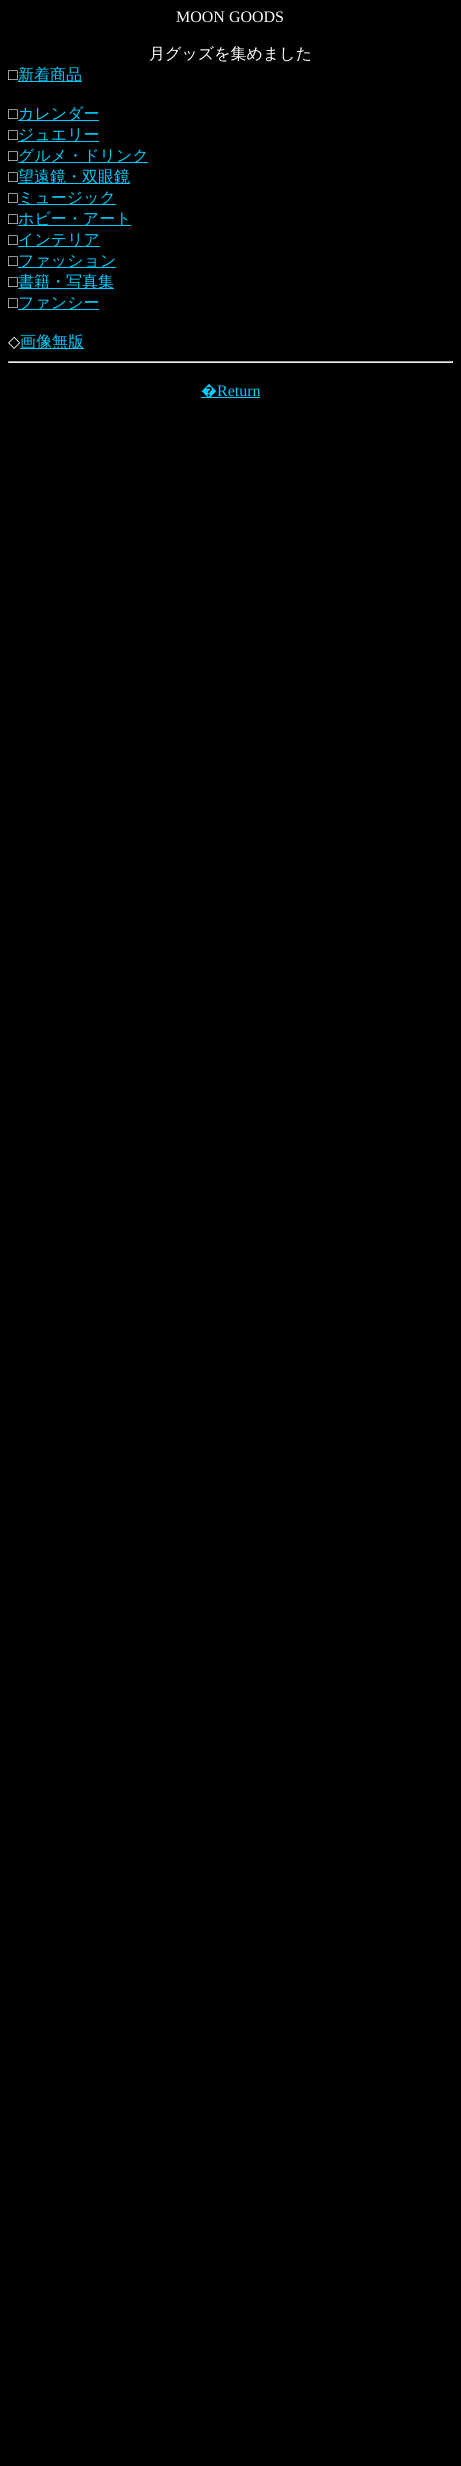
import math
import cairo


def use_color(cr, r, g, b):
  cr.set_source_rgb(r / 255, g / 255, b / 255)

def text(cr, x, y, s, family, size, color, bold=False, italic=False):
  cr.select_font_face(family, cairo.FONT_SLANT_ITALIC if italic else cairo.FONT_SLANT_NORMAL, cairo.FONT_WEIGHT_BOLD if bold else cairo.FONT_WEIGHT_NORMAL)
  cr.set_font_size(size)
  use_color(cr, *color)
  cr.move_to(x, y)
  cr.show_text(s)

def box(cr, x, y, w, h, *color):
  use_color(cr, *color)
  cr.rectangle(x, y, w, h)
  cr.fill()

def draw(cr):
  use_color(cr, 0, 0, 0)
  cr.paint()
  box(cr, 18, 81, 64, 1, 0, 204, 255)
  box(cr, 18, 120, 81, 1, 0, 204, 255)
  box(cr, 18, 141, 81, 1, 0, 204, 255)
  box(cr, 18, 162, 130, 1, 0, 204, 255)
  box(cr, 18, 183, 112, 1, 0, 204, 255)
  box(cr, 18, 204, 98, 1, 0, 204, 255)
  box(cr, 18, 225, 113, 1, 0, 204, 255)
  box(cr, 18, 246, 82, 1, 0, 204, 255)
  box(cr, 18, 267, 98, 1, 0, 204, 255)
  box(cr, 18, 288, 96, 1, 0, 204, 255)
  box(cr, 18, 309, 81, 1, 0, 204, 255)
  box(cr, 8, 361, 445, 1, 159, 159, 159)
  box(cr, 452, 361, 1, 2, 238, 238, 238)
  box(cr, 8, 362, 445, 1, 238, 238, 238)
  box(cr, 8, 361, 1, 2, 159, 159, 159)
  box(cr, 201, 397, 59, 1, 0, 204, 255)
  text(cr, 176, 22, "MOON GOODS", "Liberation Serif", 16, (255, 255, 255))
  text(cr, 149, 59, "月グッズを集めました", "WenQuanYi Zen Hei Medium", 16, (255, 255, 255))
  text(cr, 8, 80, "□", "Liberation Serif", 16, (255, 255, 255))
  text(cr, 18, 80, "新着商品", "WenQuanYi Zen Hei Medium", 16, (0, 204, 255))
  text(cr, 8, 119, "□", "Liberation Serif", 16, (255, 255, 255))
  text(cr, 18, 119, "カレンダー", "WenQuanYi Zen Hei Medium", 16, (0, 204, 255))
  text(cr, 8, 140, "□", "Liberation Serif", 16, (255, 255, 255))
  text(cr, 18, 140, "ジュエリー", "WenQuanYi Zen Hei Medium", 16, (0, 204, 255))
  text(cr, 8, 161, "□", "Liberation Serif", 16, (255, 255, 255))
  text(cr, 18, 161, "グルメ・ドリンク", "WenQuanYi Zen Hei Medium", 16, (0, 204, 255))
  text(cr, 8, 182, "□", "Liberation Serif", 16, (255, 255, 255))
  text(cr, 18, 182, "望遠鏡・双眼鏡", "WenQuanYi Zen Hei Medium", 16, (0, 204, 255))
  text(cr, 8, 203, "□", "Liberation Serif", 16, (255, 255, 255))
  text(cr, 18, 203, "ミュージック", "WenQuanYi Zen Hei Medium", 16, (0, 204, 255))
  text(cr, 8, 224, "□", "Liberation Serif", 16, (255, 255, 255))
  text(cr, 18, 224, "ホビー・アート", "WenQuanYi Zen Hei Medium", 16, (0, 204, 255))
  text(cr, 8, 245, "□", "Liberation Serif", 16, (255, 255, 255))
  text(cr, 18, 245, "インテリア", "WenQuanYi Zen Hei Medium", 16, (0, 204, 255))
  text(cr, 8, 266, "□", "Liberation Serif", 16, (255, 255, 255))
  text(cr, 18, 266, "ファッション", "WenQuanYi Zen Hei Medium", 16, (0, 204, 255))
  text(cr, 8, 287, "□", "Liberation Serif", 16, (255, 255, 255))
  text(cr, 18, 287, "書籍・写真集", "WenQuanYi Zen Hei Medium", 16, (0, 204, 255))
  text(cr, 8, 308, "□", "Liberation Serif", 16, (255, 255, 255))
  text(cr, 18, 308, "ファンシー", "WenQuanYi Zen Hei Medium", 16, (0, 204, 255))
  text(cr, 8, 347, "◇", "DejaVu Sans", 16, (255, 255, 255))
  box(cr, 20, 348, 64, 1, 0, 204, 255)
  text(cr, 20, 347, "画像無版", "WenQuanYi Zen Hei Medium", 16, (0, 204, 255))
  text(cr, 201, 396, "�", "Noto Sans", 16, (0, 204, 255))
  text(cr, 217, 396, "Return", "Liberation Serif", 16, (0, 204, 255))


surface = cairo.ImageSurface(cairo.FORMAT_RGB24, 461, 2466)
cr = cairo.Context(surface)
options = cairo.FontOptions()
options.set_hint_metrics(cairo.HINT_METRICS_OFF)
options.set_hint_style(cairo.HINT_STYLE_NONE)
cr.set_font_options(options)
cr.set_miter_limit(4)
draw(cr)
surface.write_to_png("out.png")
